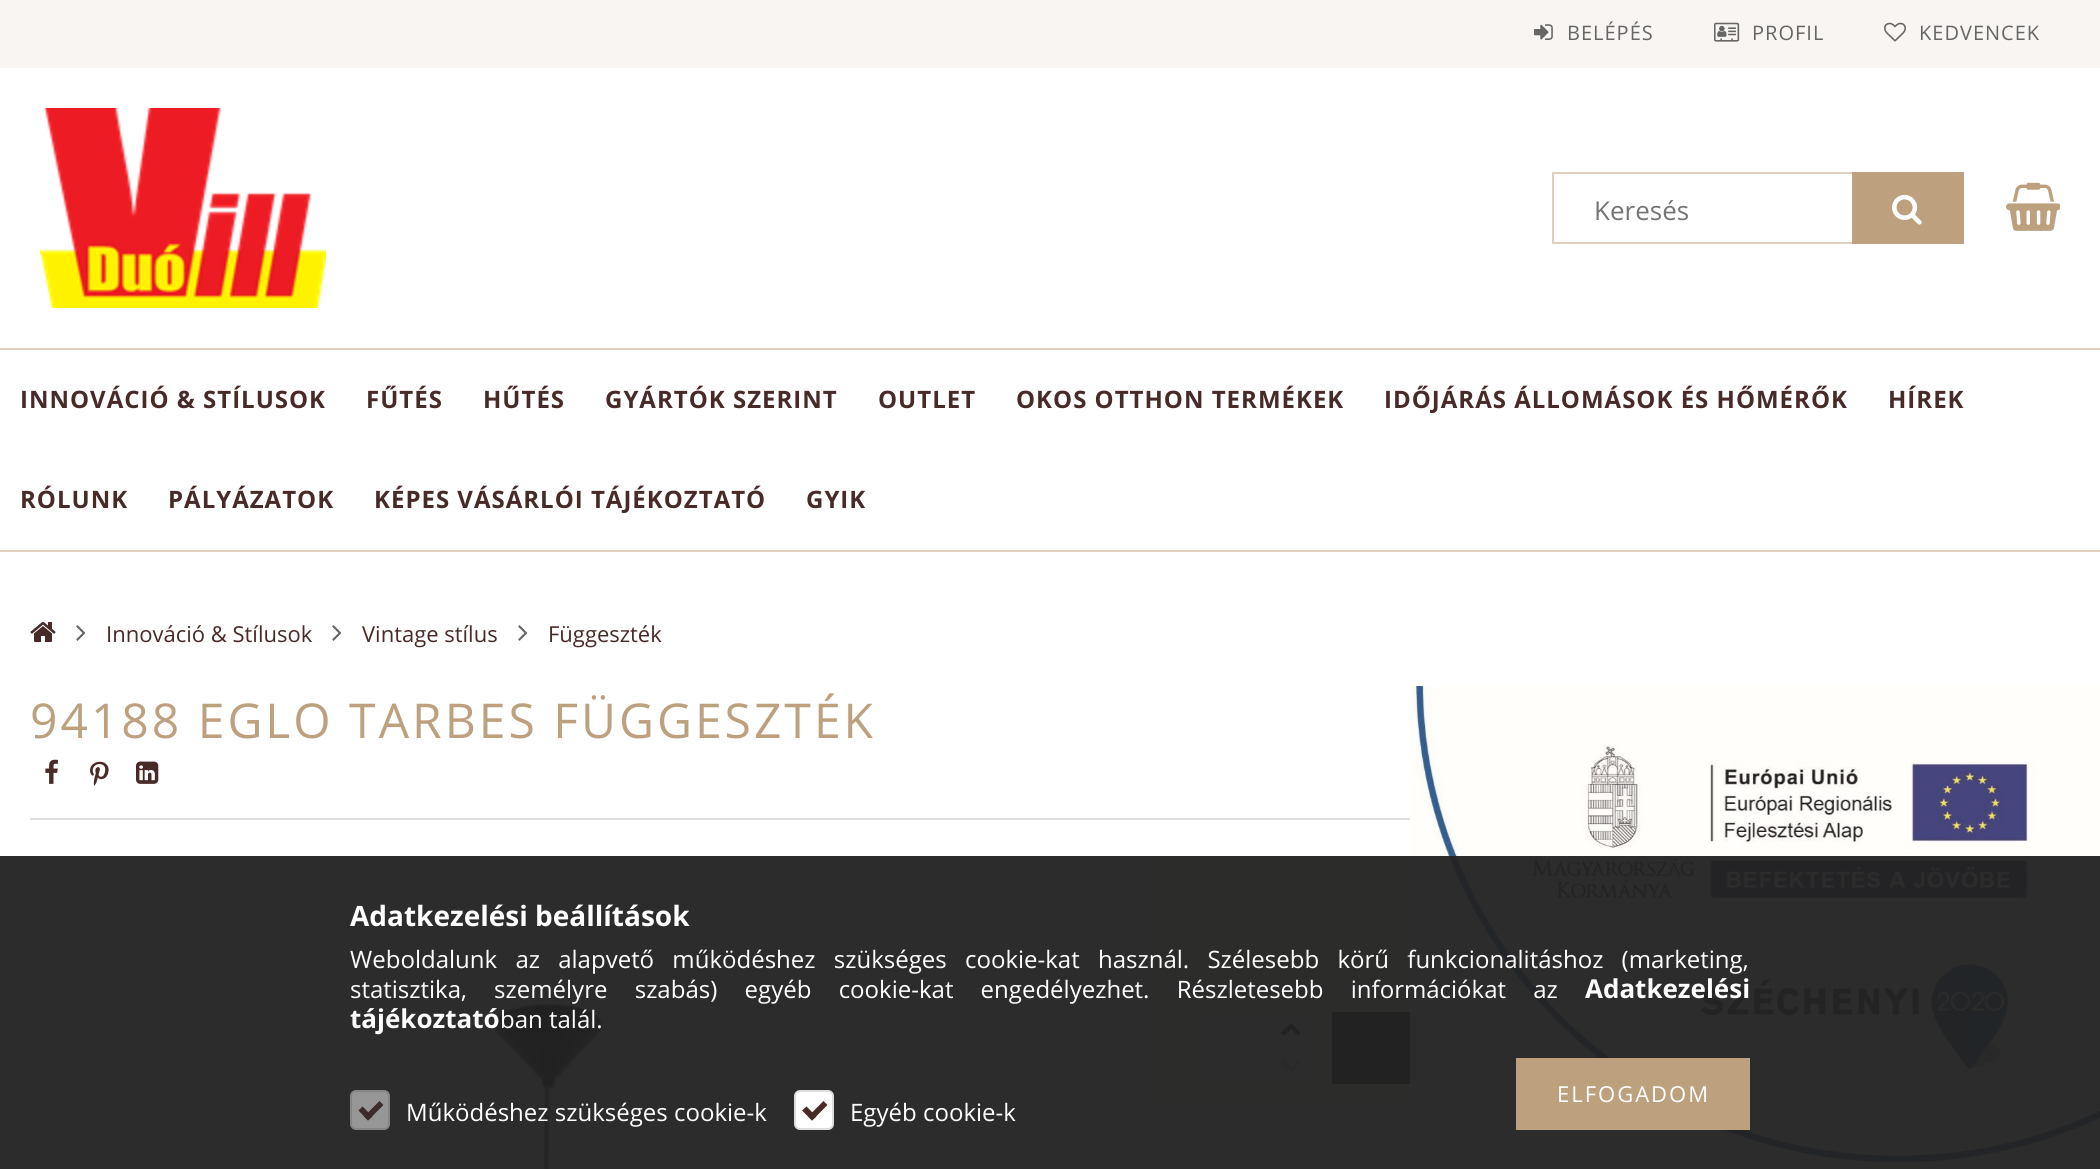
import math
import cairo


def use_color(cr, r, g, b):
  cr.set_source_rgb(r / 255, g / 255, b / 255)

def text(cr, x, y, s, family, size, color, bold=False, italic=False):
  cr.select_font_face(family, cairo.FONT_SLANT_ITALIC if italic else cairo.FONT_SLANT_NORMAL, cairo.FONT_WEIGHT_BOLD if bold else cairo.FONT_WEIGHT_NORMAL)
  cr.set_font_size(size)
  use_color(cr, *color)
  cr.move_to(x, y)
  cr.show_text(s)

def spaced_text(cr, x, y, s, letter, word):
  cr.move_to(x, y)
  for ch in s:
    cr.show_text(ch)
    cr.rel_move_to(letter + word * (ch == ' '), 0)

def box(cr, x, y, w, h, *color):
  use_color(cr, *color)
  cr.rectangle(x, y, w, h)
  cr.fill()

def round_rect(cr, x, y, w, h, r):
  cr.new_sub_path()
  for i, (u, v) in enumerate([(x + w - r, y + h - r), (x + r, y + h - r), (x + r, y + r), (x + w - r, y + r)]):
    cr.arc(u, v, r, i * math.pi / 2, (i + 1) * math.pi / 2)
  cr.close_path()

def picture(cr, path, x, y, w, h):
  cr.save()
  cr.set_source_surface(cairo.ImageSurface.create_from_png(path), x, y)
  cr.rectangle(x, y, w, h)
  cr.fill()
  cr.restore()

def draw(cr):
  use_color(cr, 255, 255, 255)
  cr.paint()
  box(cr, 0, 0, 2100, 68, 248, 245, 242)
  picture(cr, "img_01.png", 1534, 24, 19, 16)
  picture(cr, "img_02.png", 1714, 22, 26, 20)
  picture(cr, "img_03.png", 1884, 22, 22, 20)
  picture(cr, "img_04.png", 40, 108, 286, 200)
  cr.rectangle(1553, 173, 410, 70)
  use_color(cr, 222, 207, 190)
  cr.stroke()
  box(cr, 1852, 172, 112, 72, 189, 160, 126)
  picture(cr, "img_05.png", 1892, 194, 30, 31)
  picture(cr, "img_06.png", 2006, 182, 54, 49)
  box(cr, 0, 348, 2100, 2, 222, 207, 190)
  box(cr, 0, 550, 2100, 2, 222, 207, 190)
  picture(cr, "img_07.png", 30, 622, 26, 20)
  picture(cr, "img_08.png", 76, 625, 10, 16)
  picture(cr, "img_08.png", 332, 625, 10, 16)
  picture(cr, "img_08.png", 518, 625, 10, 16)
  box(cr, 30, 818, 1380, 2, 221, 221, 221)
  picture(cr, "img_09.png", 45, 759, 13, 25)
  picture(cr, "img_10.png", 90, 761, 19, 25)
  picture(cr, "img_11.png", 136, 761, 23, 23)
  picture(cr, "img_12.png", 490, 999, 113, 170)
  box(cr, 1152, 860, 258, 128, 248, 245, 242)
  box(cr, 1152, 992, 258, 112, 248, 245, 242)
  box(cr, 1192, 1012, 80, 72, 255, 255, 255)
  box(cr, 1272, 1012, 40, 72, 255, 255, 255)
  picture(cr, "img_13.png", 1281, 1023, 20, 13)
  picture(cr, "img_14.png", 1281, 1059, 20, 14)
  box(cr, 1332, 1012, 78, 72, 72, 42, 40)
  picture(cr, "img_15.png", 1410, 686, 690, 483)
  cr.set_source_rgba(0.133, 0.133, 0.133, 0.95)
  cr.rectangle(0, 856, 2100, 313)
  cr.fill()
  box(cr, 1516, 1058, 234, 72, 189, 160, 126)
  use_color(cr, 150, 150, 150)
  round_rect(cr, 351, 1091, 38, 38, 5)
  cr.fill_preserve()
  use_color(cr, 133, 133, 133)
  cr.stroke()
  use_color(cr, 59, 44, 43)
  cr.new_path()
  cr.move_to(364, 1116.5)
  cr.line_to(379.5, 1101)
  cr.line_to(383.5, 1105)
  cr.line_to(368, 1120.5)
  cr.close_path()
  cr.fill()
  cr.new_path()
  cr.move_to(358.5, 1110.5)
  cr.line_to(362.5, 1106.5)
  cr.line_to(372.5, 1116.5)
  cr.line_to(368, 1120.5)
  cr.close_path()
  cr.fill()
  use_color(cr, 255, 255, 255)
  round_rect(cr, 795, 1091, 38, 38, 5)
  cr.fill_preserve()
  use_color(cr, 221, 221, 221)
  cr.stroke()
  use_color(cr, 72, 42, 40)
  cr.new_path()
  cr.move_to(808, 1116.5)
  cr.line_to(823.5, 1101)
  cr.line_to(827.5, 1105)
  cr.line_to(812, 1120.5)
  cr.close_path()
  cr.fill()
  cr.new_path()
  cr.move_to(802, 1110.5)
  cr.line_to(806.5, 1106.5)
  cr.line_to(816.5, 1116.5)
  cr.line_to(812, 1120.5)
  cr.close_path()
  cr.fill()
  cr.select_font_face("Open Sans")
  cr.set_font_size(20)
  use_color(cr, 102, 102, 102)
  spaced_text(cr, 1567, 40, "BELÉPÉS", 1, 0)
  spaced_text(cr, 1752, 40, "PROFIL", 1, 0)
  spaced_text(cr, 1919, 40, "KEDVENCEK", 1, 0)
  text(cr, 1594, 220, "Keresés", "Open Sans", 26, (117, 117, 117))
  cr.select_font_face("Open Sans", cairo.FONT_SLANT_NORMAL, cairo.FONT_WEIGHT_BOLD)
  cr.set_font_size(24)
  use_color(cr, 72, 42, 40)
  spaced_text(cr, 20, 408, "INNOVÁCIÓ & STÍLUSOK", 1, 0)
  spaced_text(cr, 366, 408, "FŰTÉS", 1, 0)
  spaced_text(cr, 483, 408, "HŰTÉS", 1, 0)
  spaced_text(cr, 605, 408, "GYÁRTÓK SZERINT", 1, 0)
  spaced_text(cr, 878, 408, "OUTLET", 1, 0)
  spaced_text(cr, 1016, 408, "OKOS OTTHON TERMÉKEK", 1, 0)
  spaced_text(cr, 1384, 408, "IDŐJÁRÁS ÁLLOMÁSOK ÉS HŐMÉRŐK", 1, 0)
  spaced_text(cr, 1888, 408, "HÍREK", 1, 0)
  spaced_text(cr, 20, 508, "RÓLUNK", 1, 0)
  spaced_text(cr, 168, 508, "PÁLYÁZATOK", 1, 0)
  spaced_text(cr, 374, 508, "KÉPES VÁSÁRLÓI TÁJÉKOZTATÓ", 1, 0)
  spaced_text(cr, 806, 508, "GYIK", 1, 0)
  text(cr, 106, 642, "Innováció & Stílusok", "Open Sans", 22, (72, 42, 40))
  text(cr, 362, 642, "Vintage stílus", "Open Sans", 22, (72, 42, 40))
  text(cr, 548, 642, "Függeszték", "Open Sans", 22, (72, 42, 40))
  cr.set_font_size(48)
  use_color(cr, 189, 160, 126)
  spaced_text(cr, 30, 738, "94188 EGLO TARBES FÜGGESZTÉK", 3, 0)
  text(cr, 350, 926, "Adatkezelési beállítások", "Open Sans", 28, (255, 255, 255), bold=True)
  cr.select_font_face("Open Sans")
  cr.set_font_size(24)
  spaced_text(cr, 350, 968, "Weboldalunk az alapvető működéshez szükséges cookie-kat használ. Szélesebb körű funkcionalitáshoz (marketing,", 0, 12)
  spaced_text(cr, 350, 998, "statisztika, személyre szabás) egyéb cookie-kat engedélyezhet. Részletesebb információkat az", 0, 21)
  text(cr, 1585, 998, "Adatkezelési", "Open Sans", 26, (255, 255, 255), bold=True)
  text(cr, 350, 1028, "tájékoztató", "Open Sans", 26, (255, 255, 255), bold=True)
  text(cr, 500, 1028, "ban talál.", "Open Sans", 24, (255, 255, 255))
  cr.set_font_size(22)
  spaced_text(cr, 1557, 1102, "ELFOGADOM", 2, 0)
  text(cr, 406, 1121, "Működéshez szükséges cookie-k", "Open Sans", 24, (255, 255, 255))
  text(cr, 850, 1121, "Egyéb cookie-k", "Open Sans", 24, (255, 255, 255))


surface = cairo.ImageSurface(cairo.FORMAT_RGB24, 2100, 1169)
cr = cairo.Context(surface)
options = cairo.FontOptions()
options.set_hint_metrics(cairo.HINT_METRICS_OFF)
options.set_hint_style(cairo.HINT_STYLE_NONE)
cr.set_font_options(options)
cr.set_miter_limit(4)
draw(cr)
surface.write_to_png("out.png")
